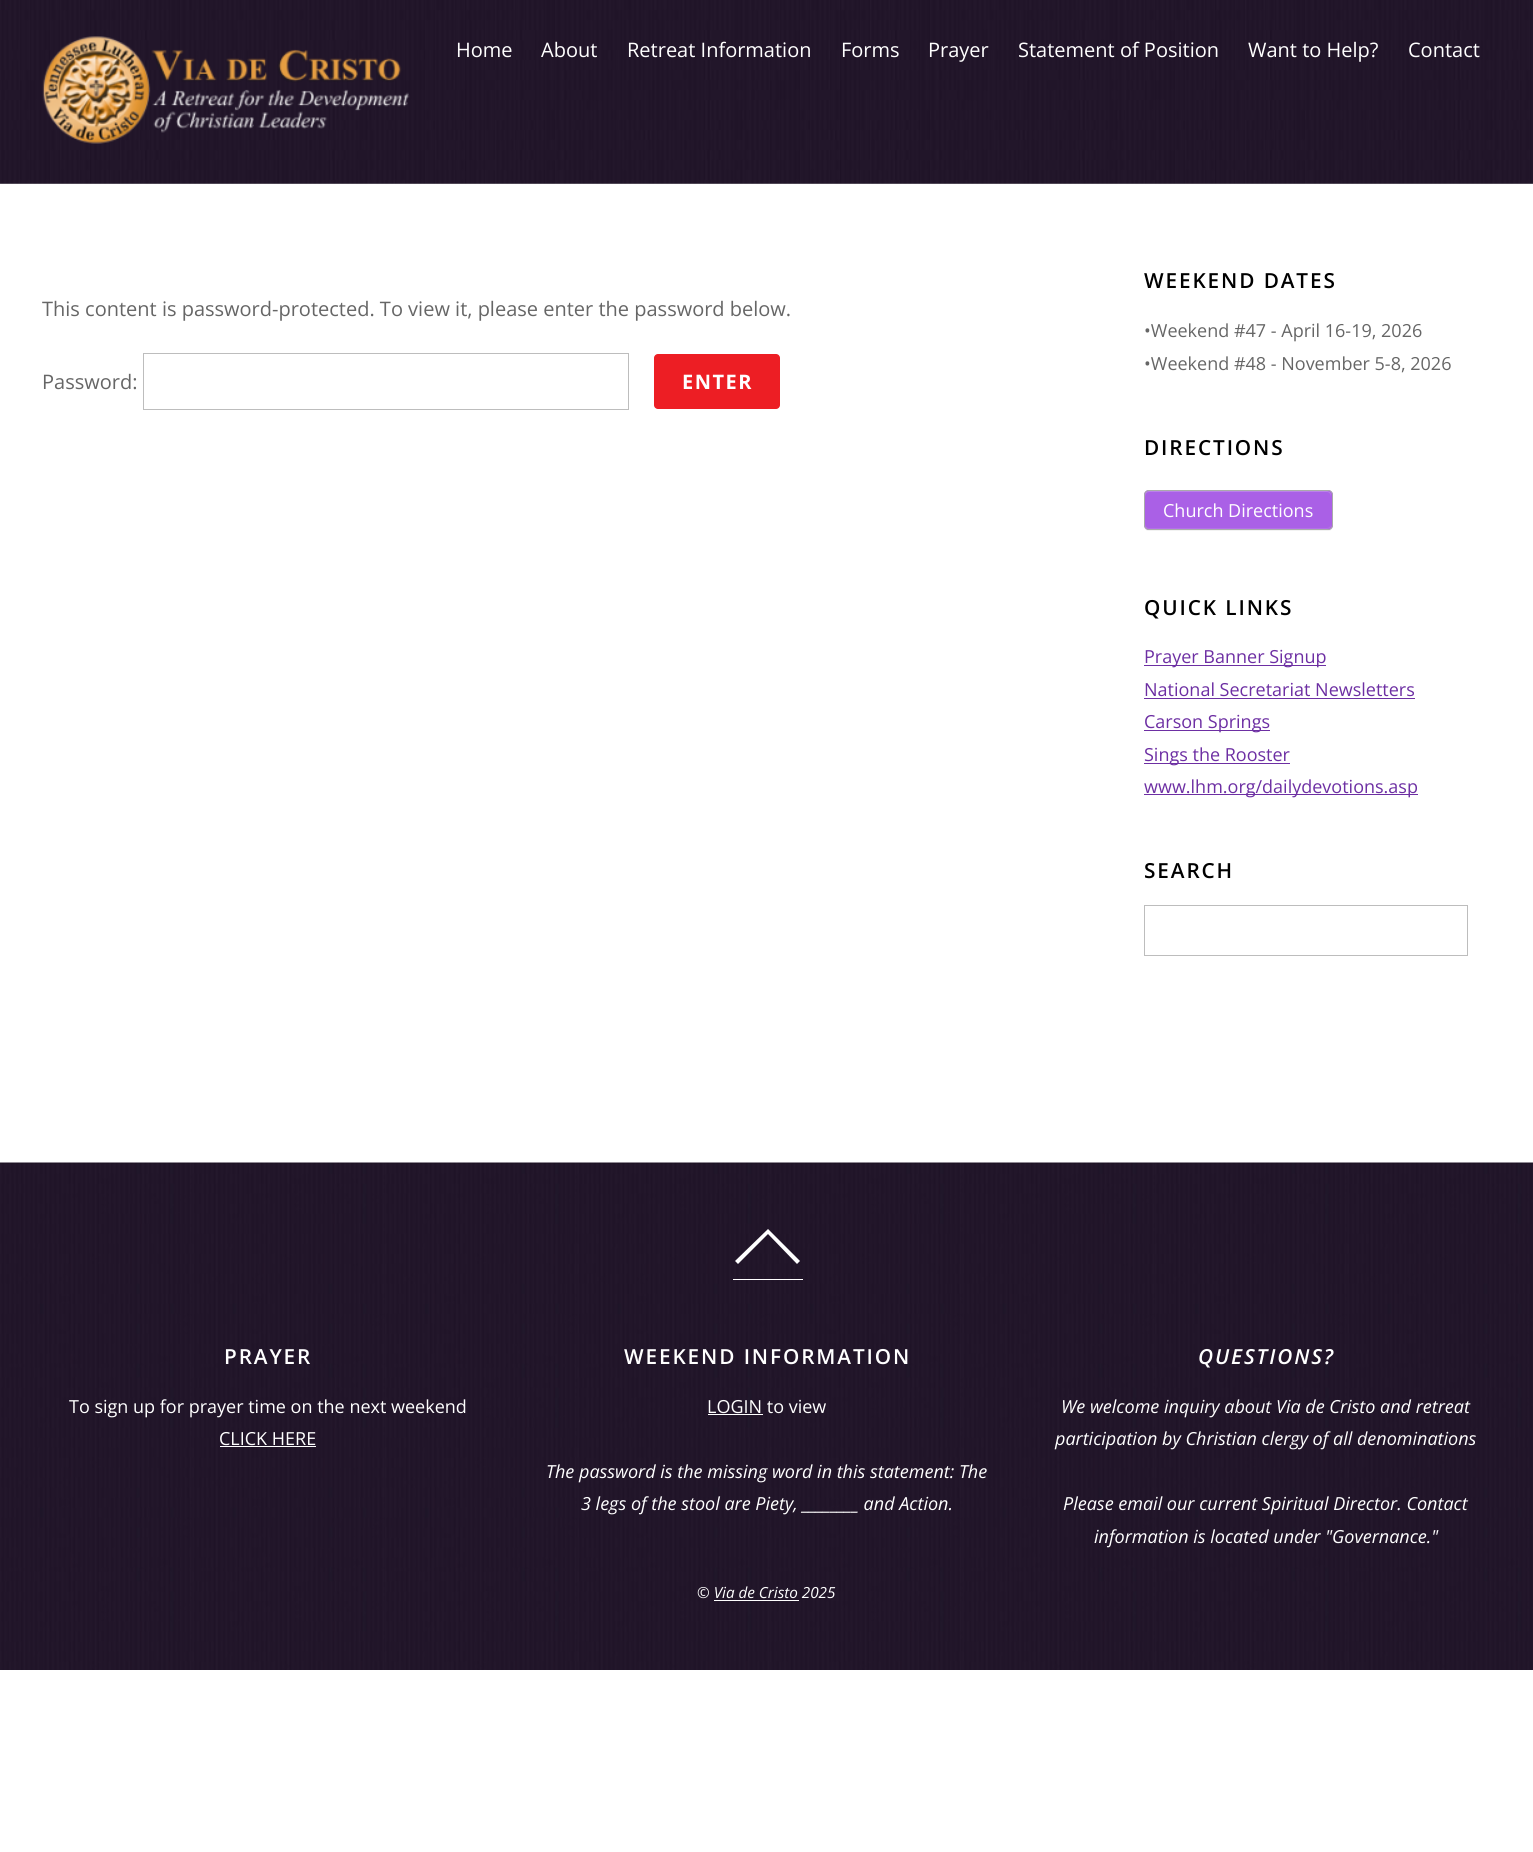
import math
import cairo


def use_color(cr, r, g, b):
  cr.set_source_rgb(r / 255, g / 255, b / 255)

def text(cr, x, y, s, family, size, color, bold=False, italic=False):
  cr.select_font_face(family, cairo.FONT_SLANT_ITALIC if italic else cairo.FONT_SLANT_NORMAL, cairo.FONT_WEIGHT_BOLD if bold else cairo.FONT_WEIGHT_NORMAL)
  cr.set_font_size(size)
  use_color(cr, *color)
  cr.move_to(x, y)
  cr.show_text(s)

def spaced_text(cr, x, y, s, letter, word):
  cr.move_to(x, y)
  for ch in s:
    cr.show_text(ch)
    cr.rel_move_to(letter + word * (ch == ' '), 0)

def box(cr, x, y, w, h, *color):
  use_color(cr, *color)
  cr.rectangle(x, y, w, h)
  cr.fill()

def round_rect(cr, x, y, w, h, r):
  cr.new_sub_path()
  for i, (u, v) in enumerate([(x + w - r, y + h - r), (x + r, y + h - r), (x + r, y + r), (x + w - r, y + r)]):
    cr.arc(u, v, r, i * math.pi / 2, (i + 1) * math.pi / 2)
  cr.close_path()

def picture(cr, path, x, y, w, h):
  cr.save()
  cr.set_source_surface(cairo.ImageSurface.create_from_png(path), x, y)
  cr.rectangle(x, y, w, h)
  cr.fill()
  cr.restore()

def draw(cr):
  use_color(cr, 255, 255, 255)
  cr.paint()
  picture(cr, "img_01.png", 0, 0, 1533, 184)
  cr.set_source_rgba(0, 0, 0, 0.1)
  cr.rectangle(0, 183, 1533, 1)
  cr.fill()
  picture(cr, "img_02.png", 42, 36, 368, 108)
  cr.rectangle(143.5, 353.5, 485, 56)
  use_color(cr, 189, 189, 189)
  cr.set_line_width(1)
  cr.stroke()
  use_color(cr, 237, 30, 36)
  round_rect(cr, 654, 354, 126, 55, 4)
  cr.fill()
  use_color(cr, 242, 242, 242)
  cr.new_path()
  cr.move_to(1144, 526)
  cr.curve_to(1144, 529, 1146, 531, 1149, 531)
  cr.line_to(1328, 531)
  cr.curve_to(1331, 531, 1333, 529, 1333, 526)
  cr.line_to(1333, 496)
  cr.curve_to(1333, 495, 1333, 494, 1332, 493)
  cr.line_to(1332, 495)
  cr.line_to(1332, 525)
  cr.curve_to(1332, 528, 1330, 530, 1327, 530)
  cr.line_to(1149, 530)
  cr.curve_to(1147, 530, 1145, 528, 1144, 526)
  cr.close_path()
  cr.fill()
  use_color(cr, 170, 96, 230)
  round_rect(cr, 1144, 490, 189, 40, 5)
  cr.fill()
  use_color(cr, 179, 112, 233)
  cr.new_path()
  cr.move_to(1145, 523)
  cr.line_to(1145, 525)
  cr.curve_to(1145, 527, 1147, 529, 1149, 529)
  cr.line_to(1327, 529)
  cr.curve_to(1329, 529, 1331, 527, 1331, 525)
  cr.line_to(1331, 523)
  cr.curve_to(1331, 526, 1329, 528, 1327, 528)
  cr.line_to(1149, 528)
  cr.curve_to(1147, 528, 1145, 526, 1145, 523)
  cr.close_path()
  cr.fill()
  use_color(cr, 187, 128, 235)
  cr.new_path()
  cr.move_to(1149, 492)
  cr.line_to(1327, 492)
  cr.curve_to(1329, 492, 1331, 494, 1331, 497)
  cr.line_to(1331, 495)
  cr.curve_to(1331, 493, 1329, 491, 1327, 491)
  cr.line_to(1149, 491)
  cr.curve_to(1147, 491, 1145, 493, 1145, 495)
  cr.line_to(1145, 497)
  cr.curve_to(1145, 494, 1147, 492, 1149, 492)
  cr.close_path()
  cr.fill()
  round_rect(cr, 1144.5, 490.5, 188, 39, 4.5)
  use_color(cr, 170, 170, 170)
  cr.stroke()
  box(cr, 1144, 665, 182, 1, 109, 47, 163)
  box(cr, 1144, 698, 271, 1, 109, 47, 163)
  box(cr, 1144, 730, 126, 1, 109, 47, 163)
  box(cr, 1144, 763, 146, 1, 109, 47, 163)
  box(cr, 1144, 794, 274, 1, 109, 47, 163)
  cr.rectangle(1144.5, 905.5, 323, 50)
  use_color(cr, 189, 189, 189)
  cr.stroke()
  picture(cr, "img_03.png", 0, 1162, 1533, 508)
  cr.set_source_rgba(0, 0, 0, 0.1)
  cr.rectangle(0, 1163, 1533, 1)
  cr.fill()
  use_color(cr, 255, 255, 255)
  cr.new_path()
  cr.move_to(800, 1261)
  cr.line_to(797, 1264)
  cr.line_to(768, 1234)
  cr.line_to(738, 1264)
  cr.line_to(735, 1261)
  cr.line_to(768, 1229)
  cr.close_path()
  cr.fill()
  box(cr, 733, 1279, 70, 1, 255, 255, 255)
  box(cr, 220, 1446, 96, 1, 255, 255, 255)
  box(cr, 708, 1414, 55, 1, 255, 255, 255)
  box(cr, 714, 1600, 85, 1, 255, 255, 255)
  text(cr, 456, 57, "Home", "Open Sans", 20, (255, 255, 255))
  text(cr, 541, 57, "About", "Open Sans", 20, (255, 255, 255))
  text(cr, 627, 57, "Retreat Information", "Open Sans", 20, (255, 255, 255))
  text(cr, 841, 57, "Forms", "Open Sans", 20, (255, 255, 255))
  text(cr, 928, 57, "Prayer", "Open Sans", 20, (255, 255, 255))
  text(cr, 1018, 57, "Statement of Position", "Open Sans", 20, (255, 255, 255))
  text(cr, 1248, 57, "Want to Help?", "Open Sans", 20, (255, 255, 255))
  text(cr, 1408, 57, "Contact", "Open Sans", 20, (255, 255, 255))
  text(cr, 42, 316, "This content is password-protected. To view it, please enter the password below.", "Open Sans", 20, (102, 102, 102))
  text(cr, 42, 389, "Password:", "Open Sans", 20, (102, 102, 102))
  cr.select_font_face("Open Sans", cairo.FONT_SLANT_NORMAL, cairo.FONT_WEIGHT_BOLD)
  use_color(cr, 255, 255, 255)
  spaced_text(cr, 682, 389, "ENTER", 1.5, 0)
  cr.select_font_face("Open Sans SemiBold")
  cr.set_font_size(20.75)
  use_color(cr, 0, 0, 0)
  spaced_text(cr, 1144, 288, "WEEKEND DATES", 1.9, 0)
  text(cr, 1144, 337, "•Weekend #47 - April 16-19, 2026", "Open Sans", 18, (102, 102, 102))
  text(cr, 1144, 370, "•Weekend #48 - November 5-8, 2026", "Open Sans", 18, (102, 102, 102))
  cr.select_font_face("Open Sans SemiBold")
  cr.set_font_size(20.75)
  use_color(cr, 0, 0, 0)
  spaced_text(cr, 1144, 455, "DIRECTIONS", 1.9, 0)
  text(cr, 1163, 517, "Church Directions", "Open Sans", 18, (255, 255, 255))
  cr.select_font_face("Open Sans SemiBold")
  cr.set_font_size(20.75)
  use_color(cr, 0, 0, 0)
  spaced_text(cr, 1144, 615, "QUICK LINKS", 1.9, 0)
  text(cr, 1144, 663, "Prayer Banner Signup", "Open Sans", 18, (109, 47, 163))
  text(cr, 1144, 696, "National Secretariat Newsletters", "Open Sans", 18, (109, 47, 163))
  text(cr, 1144, 728, "Carson Springs", "Open Sans", 18, (109, 47, 163))
  text(cr, 1144, 761, "Sings the Rooster", "Open Sans", 18, (109, 47, 163))
  text(cr, 1144, 793, "www.lhm.org/dailydevotions.asp", "Open Sans", 18, (109, 47, 163))
  cr.select_font_face("Open Sans SemiBold")
  cr.set_font_size(20.75)
  use_color(cr, 0, 0, 0)
  spaced_text(cr, 1144, 878, "SEARCH", 1.9, 0)
  use_color(cr, 255, 255, 255)
  spaced_text(cr, 224, 1364, "PRAYER", 1.9, 0)
  text(cr, 69, 1413, "To sign up for prayer time on the next weekend", "Open Sans", 18, (255, 255, 255))
  text(cr, 219, 1445, "CLICK HERE", "Open Sans", 18, (255, 255, 255))
  cr.select_font_face("Open Sans SemiBold")
  cr.set_font_size(20.75)
  spaced_text(cr, 624, 1364, "WEEKEND INFORMATION", 1.9, 0)
  text(cr, 707, 1413, "LOGIN to view", "Open Sans", 18, (255, 255, 255))
  text(cr, 546, 1478, "The password is the missing word in this statement: The", "Open Sans", 18, (255, 255, 255), italic=True)
  text(cr, 581, 1510, "3 legs of the stool are Piety, ________ and Action.", "Open Sans", 18, (255, 255, 255), italic=True)
  cr.select_font_face("Open Sans SemiBold", cairo.FONT_SLANT_ITALIC)
  cr.set_font_size(20.75)
  spaced_text(cr, 1198, 1364, "QUESTIONS?", 1.9, 0)
  text(cr, 1061, 1413, "We welcome inquiry about Via de Cristo and retreat", "Open Sans", 18, (255, 255, 255), italic=True)
  text(cr, 1055, 1445, "participation by Christian clergy of all denominations", "Open Sans", 18, (255, 255, 255), italic=True)
  text(cr, 1063, 1510, "Please email our current Spiritual Director. Contact", "Open Sans", 18, (255, 255, 255), italic=True)
  text(cr, 1094, 1543, "information is located under \"Governance.\"", "Open Sans", 18, (255, 255, 255), italic=True)
  text(cr, 697, 1598, "© Via de Cristo 2025", "Open Sans", 15.25, (255, 255, 255), italic=True)


surface = cairo.ImageSurface(cairo.FORMAT_RGB24, 1533, 1852)
cr = cairo.Context(surface)
options = cairo.FontOptions()
options.set_hint_metrics(cairo.HINT_METRICS_OFF)
options.set_hint_style(cairo.HINT_STYLE_NONE)
cr.set_font_options(options)
cr.set_miter_limit(4)
draw(cr)
surface.write_to_png("out.png")
